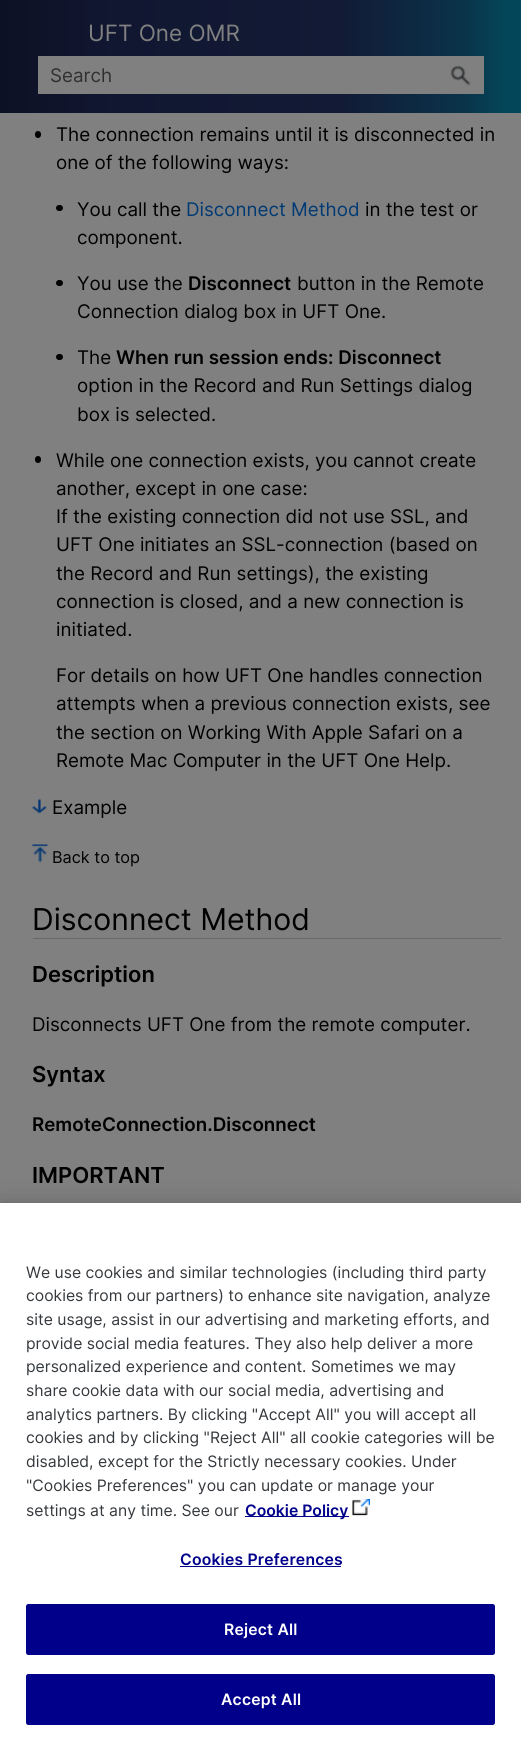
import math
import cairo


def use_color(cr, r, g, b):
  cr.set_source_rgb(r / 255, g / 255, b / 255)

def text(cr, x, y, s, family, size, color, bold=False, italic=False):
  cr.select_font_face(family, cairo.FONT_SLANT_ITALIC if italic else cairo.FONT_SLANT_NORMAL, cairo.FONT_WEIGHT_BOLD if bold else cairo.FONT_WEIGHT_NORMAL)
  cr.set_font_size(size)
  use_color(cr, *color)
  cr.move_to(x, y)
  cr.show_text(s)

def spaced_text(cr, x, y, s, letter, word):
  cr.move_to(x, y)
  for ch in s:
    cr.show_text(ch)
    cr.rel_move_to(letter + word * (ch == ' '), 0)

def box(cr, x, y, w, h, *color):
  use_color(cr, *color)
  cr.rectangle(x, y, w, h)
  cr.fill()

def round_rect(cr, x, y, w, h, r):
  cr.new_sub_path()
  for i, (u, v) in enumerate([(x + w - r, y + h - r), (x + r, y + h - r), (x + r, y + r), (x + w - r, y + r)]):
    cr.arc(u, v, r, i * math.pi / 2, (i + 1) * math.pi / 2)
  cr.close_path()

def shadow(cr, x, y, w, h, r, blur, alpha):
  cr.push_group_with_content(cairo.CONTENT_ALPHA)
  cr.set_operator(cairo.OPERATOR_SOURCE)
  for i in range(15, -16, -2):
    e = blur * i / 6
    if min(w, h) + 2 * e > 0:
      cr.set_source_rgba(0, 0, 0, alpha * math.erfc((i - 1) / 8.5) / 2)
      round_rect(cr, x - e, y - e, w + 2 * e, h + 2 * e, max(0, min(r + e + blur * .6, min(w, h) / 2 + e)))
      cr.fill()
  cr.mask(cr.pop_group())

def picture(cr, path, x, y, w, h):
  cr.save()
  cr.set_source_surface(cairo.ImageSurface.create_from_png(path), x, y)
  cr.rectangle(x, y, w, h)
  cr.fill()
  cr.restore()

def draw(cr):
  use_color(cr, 128, 128, 128)
  cr.paint()
  gradient = cairo.LinearGradient(0, 56, 521, 56)
  gradient.add_color_stop_rgba(0, 0.051, 0.067, 0.145, 1)
  gradient.add_color_stop_rgba(0.22, 0.067, 0.09, 0.192, 1)
  gradient.add_color_stop_rgba(0.65, 0.071, 0.102, 0.208, 1)
  gradient.add_color_stop_rgba(0.89, 0.039, 0.2, 0.29, 1)
  gradient.add_color_stop_rgba(0.97, 0.016, 0.275, 0.349, 1)
  cr.set_source(gradient)
  cr.rectangle(0, 0, 521, 113)
  cr.fill()
  box(cr, 38, 56, 446, 38, 128, 128, 128)
  picture(cr, "img_01.png", 450, 65, 21, 21)
  use_color(cr, 0, 0, 0)
  round_rect(cr, 35, 131, 6, 7, 3)
  cr.fill()
  round_rect(cr, 56, 205, 7, 6, 3)
  cr.fill()
  round_rect(cr, 56, 280, 7, 6, 3)
  cr.fill()
  round_rect(cr, 56, 354, 7, 6, 3)
  cr.fill()
  round_rect(cr, 35, 456, 6, 7, 3)
  cr.fill()
  picture(cr, "img_02.png", 32, 799, 15, 15)
  picture(cr, "img_03.png", 32, 844, 17, 18)
  box(cr, 33, 938, 468, 1, 105, 105, 105)
  use_color(cr, 0, 0, 0)
  shadow(cr, 0, 1203, 521, 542, 0, 11, 0.2)
  box(cr, 0, 1203, 521, 541, 255, 255, 255)
  box(cr, 245, 1516, 104, 1, 0, 0, 139)
  picture(cr, "img_04.png", 352, 1499, 18, 17)
  box(cr, 180, 1566, 161, 1, 0, 0, 139)
  round_rect(cr, 26.5, 1604.5, 468, 50, 2)
  cr.fill_preserve()
  cr.set_line_width(1)
  cr.stroke()
  round_rect(cr, 26.5, 1674.5, 468, 50, 2)
  cr.fill_preserve()
  cr.stroke()
  text(cr, 88, 41, "UFT One OMR", "Inter", 22.5, (128, 128, 128))
  text(cr, 50, 82, "Search", "Inter", 18.8, (48, 48, 48))
  text(cr, 56, 141, "The connection remains until it is disconnected in", "Inter", 18.8, (0, 0, 0))
  text(cr, 56, 169, "one of the following ways:", "Inter", 18.8, (0, 0, 0))
  text(cr, 77, 216, "You call the", "Inter", 18.8, (0, 0, 0))
  text(cr, 186, 216, "Disconnect Method", "Inter", 18.8, (0, 58, 116))
  text(cr, 365, 216, "in the test or", "Inter", 18.8, (0, 0, 0))
  text(cr, 77, 244, "component.", "Inter", 18.8, (0, 0, 0))
  text(cr, 77, 290, "You use the", "Inter", 18.8, (0, 0, 0))
  text(cr, 188, 290, "Disconnect", "Inter SemiBold", 18.8, (0, 0, 0))
  text(cr, 297, 290, "button in the Remote", "Inter", 18.8, (0, 0, 0))
  text(cr, 77, 318, "Connection dialog box in UFT One.", "Inter", 18.8, (0, 0, 0))
  text(cr, 77, 364, "The", "Inter", 18.8, (0, 0, 0))
  text(cr, 116, 364, "When run session ends: Disconnect", "Inter SemiBold", 18.8, (0, 0, 0))
  text(cr, 77, 392, "option in the Record and Run Settings dialog", "Inter", 18.8, (0, 0, 0))
  text(cr, 77, 421, "box is selected.", "Inter", 18.8, (0, 0, 0))
  text(cr, 56, 467, "While one connection exists, you cannot create", "Inter", 18.8, (0, 0, 0))
  text(cr, 56, 495, "another, except in one case:", "Inter", 18.8, (0, 0, 0))
  text(cr, 56, 523, "If the existing connection did not use SSL, and", "Inter", 18.8, (0, 0, 0))
  text(cr, 56, 551, "UFT One initiates an SSL-connection (based on", "Inter", 18.8, (0, 0, 0))
  text(cr, 56, 580, "the Record and Run settings), the existing", "Inter", 18.8, (0, 0, 0))
  text(cr, 56, 608, "connection is closed, and a new connection is", "Inter", 18.8, (0, 0, 0))
  text(cr, 56, 636, "initiated.", "Inter", 18.8, (0, 0, 0))
  text(cr, 56, 682, "For details on how UFT One handles connection", "Inter", 18.8, (0, 0, 0))
  text(cr, 56, 710, "attempts when a previous connection exists, see", "Inter", 18.8, (0, 0, 0))
  text(cr, 56, 739, "the section on Working With Apple Safari on a", "Inter", 18.8, (0, 0, 0))
  text(cr, 56, 767, "Remote Mac Computer in the UFT One Help.", "Inter", 18.8, (0, 0, 0))
  text(cr, 52, 814, "Example", "Inter", 18.8, (0, 0, 0))
  text(cr, 52, 863, "Back to top", "Inter", 16.25, (0, 0, 0))
  text(cr, 32, 930, "Disconnect Method", "Inter", 30.1, (0, 0, 0))
  text(cr, 32, 982, "Description", "Inter SemiBold", 22, (0, 0, 0))
  text(cr, 32, 1031, "Disconnects UFT One from the remote computer.", "Inter", 18.8, (0, 0, 0))
  text(cr, 32, 1082, "Syntax", "Inter SemiBold", 22, (0, 0, 0))
  text(cr, 32, 1131, "RemoteConnection.Disconnect", "Inter SemiBold", 18.8, (0, 0, 0))
  text(cr, 32, 1183, "IMPORTANT", "Inter SemiBold", 22, (0, 0, 0))
  text(cr, 26, 1278, "We use cookies and similar technologies (including third party", "Inter", 15.75, (53, 57, 61))
  text(cr, 26, 1301, "cookies from our partners) to enhance site navigation, analyze", "Inter", 15.75, (53, 57, 61))
  text(cr, 26, 1325, "site usage, assist in our advertising and marketing efforts, and", "Inter", 15.75, (53, 57, 61))
  text(cr, 26, 1349, "provide social media features. They also help deliver a more", "Inter", 15.75, (53, 57, 61))
  text(cr, 26, 1372, "personalized experience and content. Sometimes we may", "Inter", 15.75, (53, 57, 61))
  text(cr, 26, 1396, "share cookie data with our social media, advertising and", "Inter", 15.75, (53, 57, 61))
  text(cr, 26, 1420, "analytics partners. By clicking \"Accept All\" you will accept all", "Inter", 15.75, (53, 57, 61))
  text(cr, 26, 1443, "cookies and by clicking \"Reject All\" all cookie categories will be", "Inter", 15.75, (53, 57, 61))
  text(cr, 26, 1467, "disabled, except for the Strictly necessary cookies. Under", "Inter", 15.75, (53, 57, 61))
  text(cr, 26, 1491, "\"Cookies Preferences\" you can update or manage your", "Inter", 15.75, (53, 57, 61))
  text(cr, 26, 1516, "settings at any time. See our", "Inter", 15.75, (53, 57, 61))
  text(cr, 245, 1516, "Cookie Policy", "Inter SemiBold", 15.75, (0, 0, 139))
  spaced_text(cr, 180, 1565, "Cookies Preferences", 0.2, 0)
  use_color(cr, 255, 255, 255)
  spaced_text(cr, 224, 1635, "Reject All", 0.2, 0)
  spaced_text(cr, 221, 1705, "Accept All", 0.2, 0)


surface = cairo.ImageSurface(cairo.FORMAT_RGB24, 521, 1744)
cr = cairo.Context(surface)
options = cairo.FontOptions()
options.set_hint_metrics(cairo.HINT_METRICS_OFF)
options.set_hint_style(cairo.HINT_STYLE_NONE)
cr.set_font_options(options)
cr.set_miter_limit(4)
draw(cr)
surface.write_to_png("out.png")
